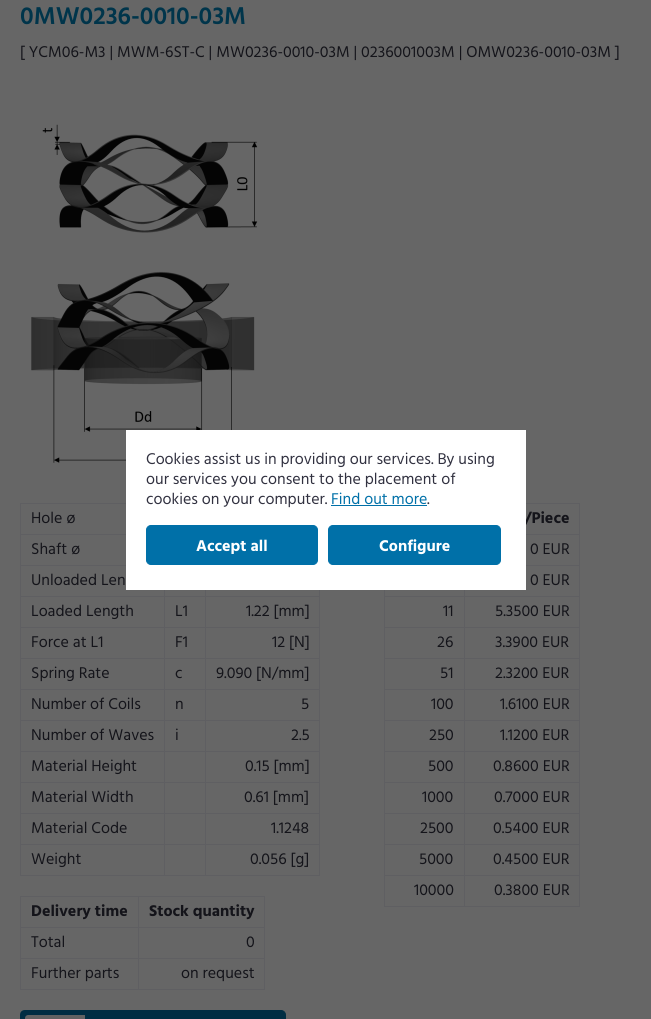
import math
import cairo


def use_color(cr, r, g, b):
  cr.set_source_rgb(r / 255, g / 255, b / 255)

def text(cr, x, y, s, family, size, color, bold=False, italic=False):
  cr.select_font_face(family, cairo.FONT_SLANT_ITALIC if italic else cairo.FONT_SLANT_NORMAL, cairo.FONT_WEIGHT_BOLD if bold else cairo.FONT_WEIGHT_NORMAL)
  cr.set_font_size(size)
  use_color(cr, *color)
  cr.move_to(x, y)
  cr.show_text(s)

def box(cr, x, y, w, h, *color):
  use_color(cr, *color)
  cr.rectangle(x, y, w, h)
  cr.fill()

def round_rect(cr, x, y, w, h, r):
  cr.new_sub_path()
  for i, (u, v) in enumerate([(x + w - r, y + h - r), (x + r, y + h - r), (x + r, y + r), (x + w - r, y + r)]):
    cr.arc(u, v, r, i * math.pi / 2, (i + 1) * math.pi / 2)
  cr.close_path()

def picture(cr, path, x, y, w, h):
  cr.save()
  cr.set_source_surface(cairo.ImageSurface.create_from_png(path), x, y)
  cr.rectangle(x, y, w, h)
  cr.fill()
  cr.restore()

def draw(cr):
  use_color(cr, 102, 102, 102)
  cr.paint()
  picture(cr, "img_01.png", 31, 124, 227, 339)
  box(cr, 20, 503, 106, 1, 95, 95, 98)
  box(cr, 20, 534, 106, 1, 95, 95, 98)
  box(cr, 20, 565, 106, 1, 95, 95, 98)
  box(cr, 205, 596, 115, 1, 95, 95, 98)
  box(cr, 205, 627, 115, 1, 95, 95, 98)
  box(cr, 205, 658, 115, 1, 95, 95, 98)
  box(cr, 205, 689, 115, 1, 95, 95, 98)
  box(cr, 205, 720, 115, 1, 95, 95, 98)
  box(cr, 205, 751, 115, 1, 95, 95, 98)
  box(cr, 205, 782, 115, 1, 95, 95, 98)
  box(cr, 205, 813, 115, 1, 95, 95, 98)
  box(cr, 205, 844, 115, 1, 95, 95, 98)
  box(cr, 319, 844, 1, 32, 95, 95, 98)
  box(cr, 205, 875, 115, 1, 95, 95, 98)
  box(cr, 205, 844, 1, 32, 95, 95, 98)
  box(cr, 164, 844, 42, 1, 95, 95, 98)
  box(cr, 205, 813, 1, 32, 95, 95, 98)
  box(cr, 164, 813, 42, 1, 95, 95, 98)
  box(cr, 205, 782, 1, 32, 95, 95, 98)
  box(cr, 164, 782, 42, 1, 95, 95, 98)
  box(cr, 205, 751, 1, 32, 95, 95, 98)
  box(cr, 164, 751, 42, 1, 95, 95, 98)
  box(cr, 205, 720, 1, 32, 95, 95, 98)
  box(cr, 164, 720, 42, 1, 95, 95, 98)
  box(cr, 205, 689, 1, 32, 95, 95, 98)
  box(cr, 164, 689, 42, 1, 95, 95, 98)
  box(cr, 205, 658, 1, 32, 95, 95, 98)
  box(cr, 164, 658, 42, 1, 95, 95, 98)
  box(cr, 205, 627, 1, 32, 95, 95, 98)
  box(cr, 164, 627, 42, 1, 95, 95, 98)
  box(cr, 205, 596, 1, 32, 95, 95, 98)
  box(cr, 164, 596, 42, 1, 95, 95, 98)
  box(cr, 164, 875, 42, 1, 95, 95, 98)
  box(cr, 164, 844, 1, 32, 95, 95, 98)
  box(cr, 20, 844, 145, 1, 95, 95, 98)
  box(cr, 164, 813, 1, 32, 95, 95, 98)
  box(cr, 20, 813, 145, 1, 95, 95, 98)
  box(cr, 164, 782, 1, 32, 95, 95, 98)
  box(cr, 20, 782, 145, 1, 95, 95, 98)
  box(cr, 164, 751, 1, 32, 95, 95, 98)
  box(cr, 20, 751, 145, 1, 95, 95, 98)
  box(cr, 164, 720, 1, 32, 95, 95, 98)
  box(cr, 20, 720, 145, 1, 95, 95, 98)
  box(cr, 164, 689, 1, 32, 95, 95, 98)
  box(cr, 20, 689, 145, 1, 95, 95, 98)
  box(cr, 164, 658, 1, 32, 95, 95, 98)
  box(cr, 20, 658, 145, 1, 95, 95, 98)
  box(cr, 164, 627, 1, 32, 95, 95, 98)
  box(cr, 20, 627, 145, 1, 95, 95, 98)
  box(cr, 164, 596, 1, 32, 95, 95, 98)
  box(cr, 20, 596, 145, 1, 95, 95, 98)
  box(cr, 20, 875, 145, 1, 95, 95, 98)
  box(cr, 20, 844, 1, 32, 95, 95, 98)
  box(cr, 20, 813, 1, 32, 95, 95, 98)
  box(cr, 20, 782, 1, 32, 95, 95, 98)
  box(cr, 20, 751, 1, 32, 95, 95, 98)
  box(cr, 20, 720, 1, 32, 95, 95, 98)
  box(cr, 20, 689, 1, 32, 95, 95, 98)
  box(cr, 20, 658, 1, 32, 95, 95, 98)
  box(cr, 20, 627, 1, 32, 95, 95, 98)
  box(cr, 20, 596, 1, 32, 95, 95, 98)
  box(cr, 20, 565, 1, 32, 95, 95, 98)
  box(cr, 20, 534, 1, 32, 95, 95, 98)
  box(cr, 20, 503, 1, 32, 95, 95, 98)
  box(cr, 164, 590, 1, 7, 95, 95, 98)
  box(cr, 205, 590, 1, 7, 95, 95, 98)
  box(cr, 319, 813, 1, 32, 95, 95, 98)
  box(cr, 319, 782, 1, 32, 95, 95, 98)
  box(cr, 319, 751, 1, 32, 95, 95, 98)
  box(cr, 319, 720, 1, 32, 95, 95, 98)
  box(cr, 319, 689, 1, 32, 95, 95, 98)
  box(cr, 319, 658, 1, 32, 95, 95, 98)
  box(cr, 319, 627, 1, 32, 95, 95, 98)
  box(cr, 319, 590, 1, 38, 95, 95, 98)
  box(cr, 526, 503, 54, 1, 95, 95, 98)
  box(cr, 526, 534, 54, 1, 95, 95, 98)
  box(cr, 526, 565, 54, 1, 95, 95, 98)
  box(cr, 464, 596, 116, 1, 95, 95, 98)
  box(cr, 464, 627, 116, 1, 95, 95, 98)
  box(cr, 464, 658, 116, 1, 95, 95, 98)
  box(cr, 464, 689, 116, 1, 95, 95, 98)
  box(cr, 464, 720, 116, 1, 95, 95, 98)
  box(cr, 464, 751, 116, 1, 95, 95, 98)
  box(cr, 464, 782, 116, 1, 95, 95, 98)
  box(cr, 464, 813, 116, 1, 95, 95, 98)
  box(cr, 464, 844, 116, 1, 95, 95, 98)
  box(cr, 464, 875, 116, 1, 95, 95, 98)
  box(cr, 579, 875, 1, 32, 95, 95, 98)
  box(cr, 579, 844, 1, 32, 95, 95, 98)
  box(cr, 579, 813, 1, 32, 95, 95, 98)
  box(cr, 579, 782, 1, 32, 95, 95, 98)
  box(cr, 579, 751, 1, 32, 95, 95, 98)
  box(cr, 579, 720, 1, 32, 95, 95, 98)
  box(cr, 579, 689, 1, 32, 95, 95, 98)
  box(cr, 579, 658, 1, 32, 95, 95, 98)
  box(cr, 579, 627, 1, 32, 95, 95, 98)
  box(cr, 579, 596, 1, 32, 95, 95, 98)
  box(cr, 579, 565, 1, 32, 95, 95, 98)
  box(cr, 579, 534, 1, 32, 95, 95, 98)
  box(cr, 579, 503, 1, 32, 95, 95, 98)
  box(cr, 464, 906, 116, 1, 95, 95, 98)
  box(cr, 464, 875, 1, 32, 95, 95, 98)
  box(cr, 384, 875, 81, 1, 95, 95, 98)
  box(cr, 464, 844, 1, 32, 95, 95, 98)
  box(cr, 384, 844, 81, 1, 95, 95, 98)
  box(cr, 464, 813, 1, 32, 95, 95, 98)
  box(cr, 384, 813, 81, 1, 95, 95, 98)
  box(cr, 464, 782, 1, 32, 95, 95, 98)
  box(cr, 384, 782, 81, 1, 95, 95, 98)
  box(cr, 464, 751, 1, 32, 95, 95, 98)
  box(cr, 384, 751, 81, 1, 95, 95, 98)
  box(cr, 464, 720, 1, 32, 95, 95, 98)
  box(cr, 384, 720, 81, 1, 95, 95, 98)
  box(cr, 464, 689, 1, 32, 95, 95, 98)
  box(cr, 384, 689, 81, 1, 95, 95, 98)
  box(cr, 464, 658, 1, 32, 95, 95, 98)
  box(cr, 384, 658, 81, 1, 95, 95, 98)
  box(cr, 464, 627, 1, 32, 95, 95, 98)
  box(cr, 384, 627, 81, 1, 95, 95, 98)
  box(cr, 464, 596, 1, 32, 95, 95, 98)
  box(cr, 384, 596, 81, 1, 95, 95, 98)
  box(cr, 464, 590, 1, 7, 95, 95, 98)
  box(cr, 384, 906, 81, 1, 95, 95, 98)
  box(cr, 384, 875, 1, 32, 95, 95, 98)
  box(cr, 384, 844, 1, 32, 95, 95, 98)
  box(cr, 384, 813, 1, 32, 95, 95, 98)
  box(cr, 384, 782, 1, 32, 95, 95, 98)
  box(cr, 384, 751, 1, 32, 95, 95, 98)
  box(cr, 384, 720, 1, 32, 95, 95, 98)
  box(cr, 384, 689, 1, 32, 95, 95, 98)
  box(cr, 384, 658, 1, 32, 95, 95, 98)
  box(cr, 384, 627, 1, 32, 95, 95, 98)
  box(cr, 384, 590, 1, 38, 95, 95, 98)
  box(cr, 138, 896, 127, 1, 95, 95, 98)
  box(cr, 138, 927, 127, 1, 95, 95, 98)
  box(cr, 138, 958, 127, 1, 95, 95, 98)
  box(cr, 264, 958, 1, 32, 95, 95, 98)
  box(cr, 138, 989, 127, 1, 95, 95, 98)
  box(cr, 138, 958, 1, 32, 95, 95, 98)
  box(cr, 20, 958, 119, 1, 95, 95, 98)
  box(cr, 138, 927, 1, 32, 95, 95, 98)
  box(cr, 20, 927, 119, 1, 95, 95, 98)
  box(cr, 138, 896, 1, 32, 95, 95, 98)
  box(cr, 20, 896, 119, 1, 95, 95, 98)
  box(cr, 20, 989, 119, 1, 95, 95, 98)
  box(cr, 20, 958, 1, 32, 95, 95, 98)
  box(cr, 20, 927, 1, 32, 95, 95, 98)
  box(cr, 20, 896, 1, 32, 95, 95, 98)
  box(cr, 264, 927, 1, 32, 95, 95, 98)
  box(cr, 264, 896, 1, 32, 95, 95, 98)
  use_color(cr, 0, 45, 67)
  cr.new_path()
  cr.move_to(25, 1010)
  cr.line_to(90, 1010)
  cr.line_to(90, 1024)
  cr.line_to(25, 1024)
  cr.curve_to(22, 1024, 20, 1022, 20, 1019)
  cr.line_to(20, 1015)
  cr.curve_to(20, 1012, 22, 1010, 25, 1010)
  cr.close_path()
  cr.fill()
  use_color(cr, 98, 98, 99)
  cr.new_path()
  cr.move_to(28, 1015)
  cr.line_to(85, 1015)
  cr.line_to(85, 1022)
  cr.line_to(28, 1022)
  cr.curve_to(26.5, 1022, 25, 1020.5, 25, 1019)
  cr.line_to(25, 1018)
  cr.curve_to(25, 1016.5, 26.5, 1015, 28, 1015)
  cr.close_path()
  cr.fill()
  use_color(cr, 0, 45, 67)
  cr.new_path()
  cr.move_to(90.5, 1010.5)
  cr.line_to(281, 1010.5)
  cr.curve_to(283.5, 1010.5, 285.5, 1012.5, 285.5, 1015)
  cr.line_to(285.5, 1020)
  cr.curve_to(285.5, 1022.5, 283.5, 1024.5, 281, 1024.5)
  cr.line_to(90.5, 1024.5)
  cr.close_path()
  cr.fill_preserve()
  cr.set_line_width(1)
  cr.stroke()
  text(cr, 20, 24, "0MW0236-0010-03M", "Hind SemiBold", 25, (0, 53, 75))
  text(cr, 20, 57, "[ YCM06-M3 | MWM-6ST-C | MW0236-0010-03M | 0236001003M | OMW0236-0010-03M ]", "Hind", 16, (20, 20, 26))
  text(cr, 31, 523, "Hole ø", "Hind", 16, (20, 20, 26))
  text(cr, 31, 554, "Shaft ø", "Hind", 16, (20, 20, 26))
  text(cr, 31, 585, "Unloaded Len", "Hind", 16, (20, 20, 26))
  text(cr, 31, 616, "Loaded Length", "Hind", 16, (20, 20, 26))
  text(cr, 175, 616, "L1", "Hind", 16, (20, 20, 26))
  text(cr, 246, 616, "1.22 [mm]", "Hind", 16, (20, 20, 26))
  text(cr, 31, 647, "Force at L1", "Hind", 16, (20, 20, 26))
  text(cr, 175, 647, "F1", "Hind", 16, (20, 20, 26))
  text(cr, 272, 647, "12 [N]", "Hind", 16, (20, 20, 26))
  text(cr, 31, 678, "Spring Rate", "Hind", 16, (20, 20, 26))
  text(cr, 175, 678, "c", "Hind", 16, (20, 20, 26))
  text(cr, 216, 678, "9.090 [N/mm]", "Hind", 16, (20, 20, 26))
  text(cr, 31, 709, "Number of Coils", "Hind", 16, (20, 20, 26))
  text(cr, 175, 709, "n", "Hind", 16, (20, 20, 26))
  text(cr, 301, 709, "5", "Hind", 16, (20, 20, 26))
  text(cr, 31, 740, "Number of Waves", "Hind", 16, (20, 20, 26))
  text(cr, 175, 740, "i", "Hind", 16, (20, 20, 26))
  text(cr, 291, 740, "2.5", "Hind", 16, (20, 20, 26))
  text(cr, 31, 771, "Material Height", "Hind", 16, (20, 20, 26))
  text(cr, 245, 771, "0.15 [mm]", "Hind", 16, (20, 20, 26))
  text(cr, 31, 802, "Material Width", "Hind", 16, (20, 20, 26))
  text(cr, 244, 802, "0.61 [mm]", "Hind", 16, (20, 20, 26))
  text(cr, 31, 833, "Material Code", "Hind", 16, (20, 20, 26))
  text(cr, 271, 833, "1.1248", "Hind", 16, (20, 20, 26))
  text(cr, 31, 864, "Weight", "Hind", 16, (20, 20, 26))
  text(cr, 250, 864, "0.056 [g]", "Hind", 16, (20, 20, 26))
  text(cr, 524, 523, "/Piece", "Hind", 16, (20, 20, 26), bold=True)
  text(cr, 530, 554, "0 EUR", "Hind", 16, (20, 20, 26))
  text(cr, 530, 585, "0 EUR", "Hind", 16, (20, 20, 26))
  text(cr, 443, 616, "11", "Hind", 16, (20, 20, 26))
  text(cr, 495, 616, "5.3500 EUR", "Hind", 16, (20, 20, 26))
  text(cr, 437, 647, "26", "Hind", 16, (20, 20, 26))
  text(cr, 495, 647, "3.3900 EUR", "Hind", 16, (20, 20, 26))
  text(cr, 440, 678, "51", "Hind", 16, (20, 20, 26))
  text(cr, 495, 678, "2.3200 EUR", "Hind", 16, (20, 20, 26))
  text(cr, 431, 709, "100", "Hind", 16, (20, 20, 26))
  text(cr, 500, 709, "1.6100 EUR", "Hind", 16, (20, 20, 26))
  text(cr, 429, 740, "250", "Hind", 16, (20, 20, 26))
  text(cr, 500, 740, "1.1200 EUR", "Hind", 16, (20, 20, 26))
  text(cr, 428, 771, "500", "Hind", 16, (20, 20, 26))
  text(cr, 493, 771, "0.8600 EUR", "Hind", 16, (20, 20, 26))
  text(cr, 422, 802, "1000", "Hind", 16, (20, 20, 26))
  text(cr, 494, 802, "0.7000 EUR", "Hind", 16, (20, 20, 26))
  text(cr, 420, 833, "2500", "Hind", 16, (20, 20, 26))
  text(cr, 493, 833, "0.5400 EUR", "Hind", 16, (20, 20, 26))
  text(cr, 419, 864, "5000", "Hind", 16, (20, 20, 26))
  text(cr, 493, 864, "0.4500 EUR", "Hind", 16, (20, 20, 26))
  text(cr, 414, 895, "10000", "Hind", 16, (20, 20, 26))
  text(cr, 494, 895, "0.3800 EUR", "Hind", 16, (20, 20, 26))
  text(cr, 31, 916, "Delivery time", "Hind", 16, (20, 20, 26), bold=True)
  text(cr, 149, 916, "Stock quantity", "Hind", 16, (20, 20, 26), bold=True)
  text(cr, 31, 947, "Total", "Hind", 16, (20, 20, 26))
  text(cr, 246, 947, "0", "Hind", 16, (20, 20, 26))
  text(cr, 31, 978, "Further parts", "Hind", 16, (20, 20, 26))
  text(cr, 181, 978, "on request", "Hind", 16, (20, 20, 26))
  box(cr, 126, 430, 400, 160, 255, 255, 255)
  text(cr, 146, 464, "Cookies assist us in providing our services. By using", "Hind", 16, (49, 49, 64))
  text(cr, 146, 484, "our services you consent to the placement of", "Hind", 16, (49, 49, 64))
  text(cr, 146, 504, "cookies on your computer.", "Hind", 16, (49, 49, 64))
  text(cr, 331, 504, "Find out more", "Hind", 16, (0, 112, 168))
  box(cr, 331, 505, 96, 1, 0, 112, 168)
  text(cr, 427, 504, ".", "Hind", 16, (49, 49, 64))
  use_color(cr, 0, 112, 168)
  round_rect(cr, 146.5, 525.5, 171, 39, 4.5)
  cr.fill_preserve()
  cr.stroke()
  text(cr, 196, 551, "Accept all", "Hind", 16, (255, 255, 255), bold=True)
  use_color(cr, 0, 112, 168)
  round_rect(cr, 328.5, 525.5, 172, 39, 4.5)
  cr.fill_preserve()
  cr.stroke()
  text(cr, 379, 551, "Configure", "Hind", 16, (255, 255, 255), bold=True)


surface = cairo.ImageSurface(cairo.FORMAT_RGB24, 651, 1019)
cr = cairo.Context(surface)
options = cairo.FontOptions()
options.set_hint_metrics(cairo.HINT_METRICS_OFF)
options.set_hint_style(cairo.HINT_STYLE_NONE)
cr.set_font_options(options)
cr.set_miter_limit(4)
draw(cr)
surface.write_to_png("out.png")
